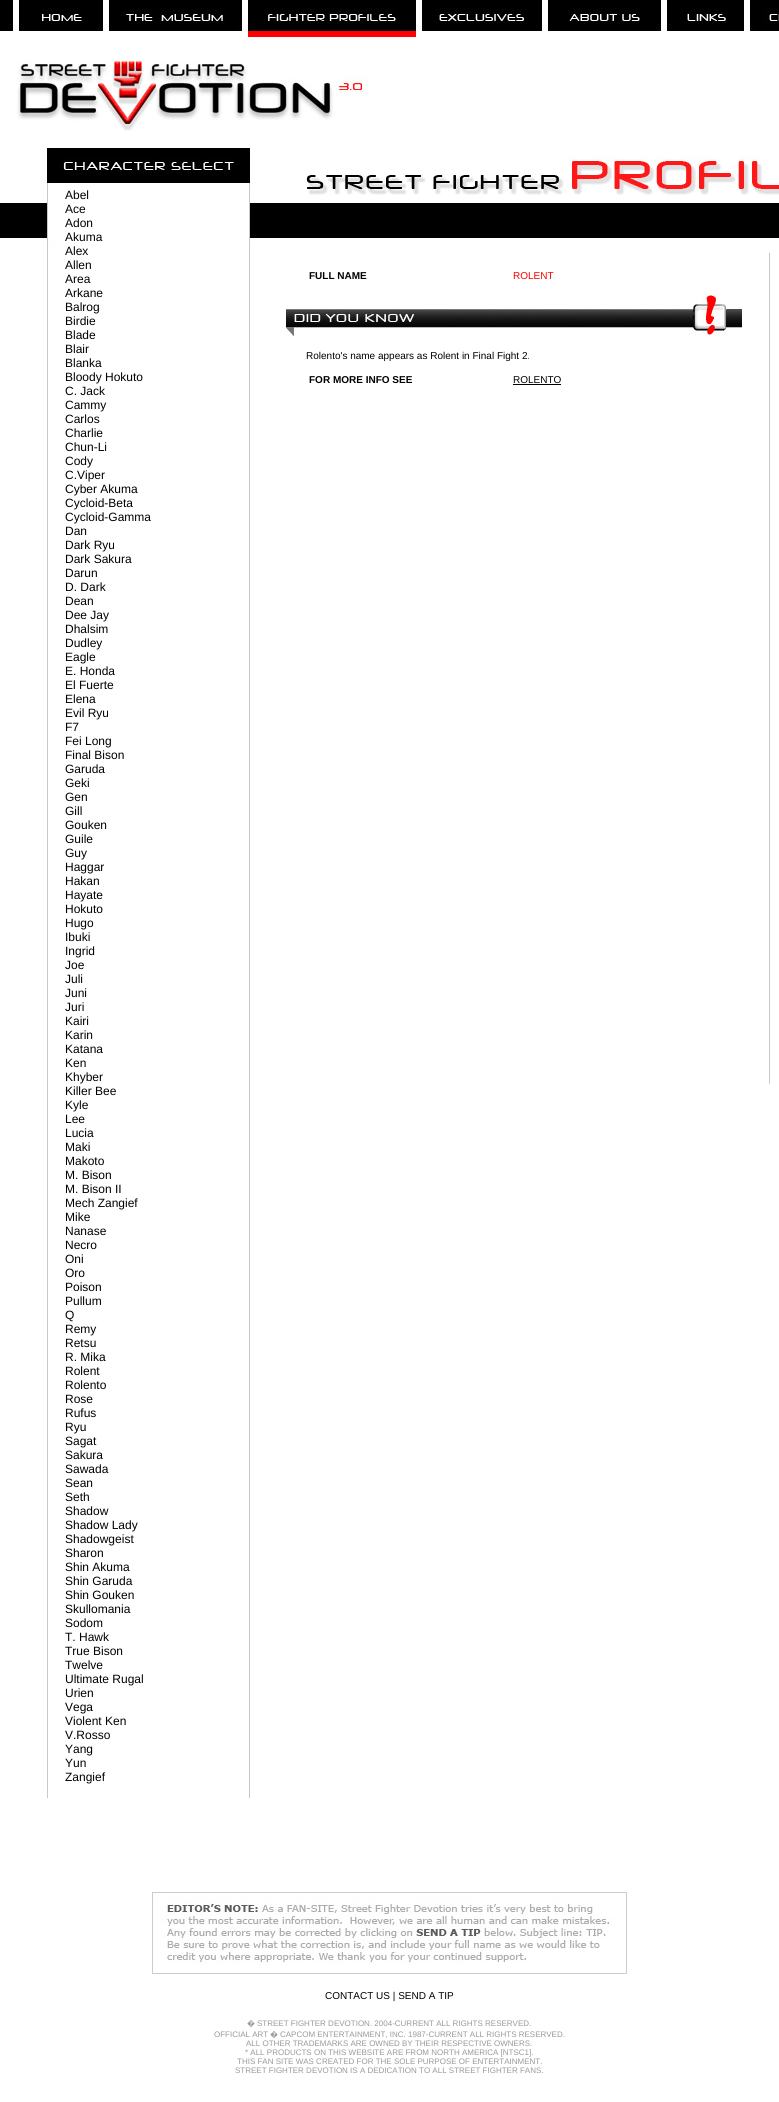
import math
import cairo


def use_color(cr, r, g, b):
  cr.set_source_rgb(r / 255, g / 255, b / 255)

def text(cr, x, y, s, family, size, color, bold=False, italic=False):
  cr.select_font_face(family, cairo.FONT_SLANT_ITALIC if italic else cairo.FONT_SLANT_NORMAL, cairo.FONT_WEIGHT_BOLD if bold else cairo.FONT_WEIGHT_NORMAL)
  cr.set_font_size(size)
  use_color(cr, *color)
  cr.move_to(x, y)
  cr.show_text(s)

def box(cr, x, y, w, h, *color):
  use_color(cr, *color)
  cr.rectangle(x, y, w, h)
  cr.fill()

def picture(cr, path, x, y, w, h):
  cr.save()
  cr.set_source_surface(cairo.ImageSurface.create_from_png(path), x, y)
  cr.rectangle(x, y, w, h)
  cr.fill()
  cr.restore()

def draw(cr):
  use_color(cr, 255, 255, 255)
  cr.paint()
  picture(cr, "img_01.png", 0, 0, 779, 238)
  picture(cr, "img_02.png", 13, 0, 3, 31)
  picture(cr, "img_03.png", 16, 0, 91, 31)
  picture(cr, "img_04.png", 107, 0, 138, 31)
  picture(cr, "img_05.png", 245, 0, 174, 40)
  picture(cr, "img_06.png", 419, 0, 126, 31)
  picture(cr, "img_07.png", 545, 0, 119, 31)
  picture(cr, "img_08.png", 664, 0, 83, 31)
  picture(cr, "img_09.png", 747, 0, 32, 31)
  picture(cr, "img_10.png", 17, 60, 351, 71)
  picture(cr, "img_11.png", 47, 148, 203, 1650)
  picture(cr, "img_12.png", 306, 157, 473, 38)
  picture(cr, "img_13.png", 286, 294, 456, 43)
  box(cr, 513, 384, 48, 1, 0, 0, 0)
  box(cr, 769, 253, 1, 831, 200, 200, 200)
  picture(cr, "img_14.png", 152, 1892, 475, 82)
  text(cr, 65, 199, "Abel", "Liberation Sans", 12, (0, 0, 0))
  text(cr, 65, 213, "Ace", "Liberation Sans", 12, (0, 0, 0))
  text(cr, 65, 227, "Adon", "Liberation Sans", 12, (0, 0, 0))
  text(cr, 65, 241, "Akuma", "Liberation Sans", 12, (0, 0, 0))
  text(cr, 65, 255, "Alex", "Liberation Sans", 12, (0, 0, 0))
  text(cr, 65, 269, "Allen", "Liberation Sans", 12, (0, 0, 0))
  text(cr, 65, 283, "Area", "Liberation Sans", 12, (0, 0, 0))
  text(cr, 65, 297, "Arkane", "Liberation Sans", 12, (0, 0, 0))
  text(cr, 65, 311, "Balrog", "Liberation Sans", 12, (0, 0, 0))
  text(cr, 65, 325, "Birdie", "Liberation Sans", 12, (0, 0, 0))
  text(cr, 65, 339, "Blade", "Liberation Sans", 12, (0, 0, 0))
  text(cr, 65, 353, "Blair", "Liberation Sans", 12, (0, 0, 0))
  text(cr, 65, 367, "Blanka", "Liberation Sans", 12, (0, 0, 0))
  text(cr, 65, 381, "Bloody Hokuto", "Liberation Sans", 12, (0, 0, 0))
  text(cr, 65, 395, "C. Jack", "Liberation Sans", 12, (0, 0, 0))
  text(cr, 65, 409, "Cammy", "Liberation Sans", 12, (0, 0, 0))
  text(cr, 65, 423, "Carlos", "Liberation Sans", 12, (0, 0, 0))
  text(cr, 65, 437, "Charlie", "Liberation Sans", 12, (0, 0, 0))
  text(cr, 65, 451, "Chun-Li", "Liberation Sans", 12, (0, 0, 0))
  text(cr, 65, 465, "Cody", "Liberation Sans", 12, (0, 0, 0))
  text(cr, 65, 479, "C.Viper", "Liberation Sans", 12, (0, 0, 0))
  text(cr, 65, 493, "Cyber Akuma", "Liberation Sans", 12, (0, 0, 0))
  text(cr, 65, 507, "Cycloid-Beta", "Liberation Sans", 12, (0, 0, 0))
  text(cr, 65, 521, "Cycloid-Gamma", "Liberation Sans", 12, (0, 0, 0))
  text(cr, 65, 535, "Dan", "Liberation Sans", 12, (0, 0, 0))
  text(cr, 65, 549, "Dark Ryu", "Liberation Sans", 12, (0, 0, 0))
  text(cr, 65, 563, "Dark Sakura", "Liberation Sans", 12, (0, 0, 0))
  text(cr, 65, 577, "Darun", "Liberation Sans", 12, (0, 0, 0))
  text(cr, 65, 591, "D. Dark", "Liberation Sans", 12, (0, 0, 0))
  text(cr, 65, 605, "Dean", "Liberation Sans", 12, (0, 0, 0))
  text(cr, 65, 619, "Dee Jay", "Liberation Sans", 12, (0, 0, 0))
  text(cr, 65, 633, "Dhalsim", "Liberation Sans", 12, (0, 0, 0))
  text(cr, 65, 647, "Dudley", "Liberation Sans", 12, (0, 0, 0))
  text(cr, 65, 661, "Eagle", "Liberation Sans", 12, (0, 0, 0))
  text(cr, 65, 675, "E. Honda", "Liberation Sans", 12, (0, 0, 0))
  text(cr, 65, 689, "El Fuerte", "Liberation Sans", 12, (0, 0, 0))
  text(cr, 65, 703, "Elena", "Liberation Sans", 12, (0, 0, 0))
  text(cr, 65, 717, "Evil Ryu", "Liberation Sans", 12, (0, 0, 0))
  text(cr, 65, 731, "F7", "Liberation Sans", 12, (0, 0, 0))
  text(cr, 65, 745, "Fei Long", "Liberation Sans", 12, (0, 0, 0))
  text(cr, 65, 759, "Final Bison", "Liberation Sans", 12, (0, 0, 0))
  text(cr, 65, 773, "Garuda", "Liberation Sans", 12, (0, 0, 0))
  text(cr, 65, 787, "Geki", "Liberation Sans", 12, (0, 0, 0))
  text(cr, 65, 801, "Gen", "Liberation Sans", 12, (0, 0, 0))
  text(cr, 65, 815, "Gill", "Liberation Sans", 12, (0, 0, 0))
  text(cr, 65, 829, "Gouken", "Liberation Sans", 12, (0, 0, 0))
  text(cr, 65, 843, "Guile", "Liberation Sans", 12, (0, 0, 0))
  text(cr, 65, 857, "Guy", "Liberation Sans", 12, (0, 0, 0))
  text(cr, 65, 871, "Haggar", "Liberation Sans", 12, (0, 0, 0))
  text(cr, 65, 885, "Hakan", "Liberation Sans", 12, (0, 0, 0))
  text(cr, 65, 899, "Hayate", "Liberation Sans", 12, (0, 0, 0))
  text(cr, 65, 913, "Hokuto", "Liberation Sans", 12, (0, 0, 0))
  text(cr, 65, 927, "Hugo", "Liberation Sans", 12, (0, 0, 0))
  text(cr, 65, 941, "Ibuki", "Liberation Sans", 12, (0, 0, 0))
  text(cr, 65, 955, "Ingrid", "Liberation Sans", 12, (0, 0, 0))
  text(cr, 65, 969, "Joe", "Liberation Sans", 12, (0, 0, 0))
  text(cr, 65, 983, "Juli", "Liberation Sans", 12, (0, 0, 0))
  text(cr, 65, 997, "Juni", "Liberation Sans", 12, (0, 0, 0))
  text(cr, 65, 1011, "Juri", "Liberation Sans", 12, (0, 0, 0))
  text(cr, 65, 1025, "Kairi", "Liberation Sans", 12, (0, 0, 0))
  text(cr, 65, 1039, "Karin", "Liberation Sans", 12, (0, 0, 0))
  text(cr, 65, 1053, "Katana", "Liberation Sans", 12, (0, 0, 0))
  text(cr, 65, 1067, "Ken", "Liberation Sans", 12, (0, 0, 0))
  text(cr, 65, 1081, "Khyber", "Liberation Sans", 12, (0, 0, 0))
  text(cr, 65, 1095, "Killer Bee", "Liberation Sans", 12, (0, 0, 0))
  text(cr, 65, 1109, "Kyle", "Liberation Sans", 12, (0, 0, 0))
  text(cr, 65, 1123, "Lee", "Liberation Sans", 12, (0, 0, 0))
  text(cr, 65, 1137, "Lucia", "Liberation Sans", 12, (0, 0, 0))
  text(cr, 65, 1151, "Maki", "Liberation Sans", 12, (0, 0, 0))
  text(cr, 65, 1165, "Makoto", "Liberation Sans", 12, (0, 0, 0))
  text(cr, 65, 1179, "M. Bison", "Liberation Sans", 12, (0, 0, 0))
  text(cr, 65, 1193, "M. Bison II", "Liberation Sans", 12, (0, 0, 0))
  text(cr, 65, 1207, "Mech Zangief", "Liberation Sans", 12, (0, 0, 0))
  text(cr, 65, 1221, "Mike", "Liberation Sans", 12, (0, 0, 0))
  text(cr, 65, 1235, "Nanase", "Liberation Sans", 12, (0, 0, 0))
  text(cr, 65, 1249, "Necro", "Liberation Sans", 12, (0, 0, 0))
  text(cr, 65, 1263, "Oni", "Liberation Sans", 12, (0, 0, 0))
  text(cr, 65, 1277, "Oro", "Liberation Sans", 12, (0, 0, 0))
  text(cr, 65, 1291, "Poison", "Liberation Sans", 12, (0, 0, 0))
  text(cr, 65, 1305, "Pullum", "Liberation Sans", 12, (0, 0, 0))
  text(cr, 65, 1319, "Q", "Liberation Sans", 12, (0, 0, 0))
  text(cr, 65, 1333, "Remy", "Liberation Sans", 12, (0, 0, 0))
  text(cr, 65, 1347, "Retsu", "Liberation Sans", 12, (0, 0, 0))
  text(cr, 65, 1361, "R. Mika", "Liberation Sans", 12, (0, 0, 0))
  text(cr, 65, 1375, "Rolent", "Liberation Sans", 12, (0, 0, 0))
  text(cr, 65, 1389, "Rolento", "Liberation Sans", 12, (0, 0, 0))
  text(cr, 65, 1403, "Rose", "Liberation Sans", 12, (0, 0, 0))
  text(cr, 65, 1417, "Rufus", "Liberation Sans", 12, (0, 0, 0))
  text(cr, 65, 1431, "Ryu", "Liberation Sans", 12, (0, 0, 0))
  text(cr, 65, 1445, "Sagat", "Liberation Sans", 12, (0, 0, 0))
  text(cr, 65, 1459, "Sakura", "Liberation Sans", 12, (0, 0, 0))
  text(cr, 65, 1473, "Sawada", "Liberation Sans", 12, (0, 0, 0))
  text(cr, 65, 1487, "Sean", "Liberation Sans", 12, (0, 0, 0))
  text(cr, 65, 1501, "Seth", "Liberation Sans", 12, (0, 0, 0))
  text(cr, 65, 1515, "Shadow", "Liberation Sans", 12, (0, 0, 0))
  text(cr, 65, 1529, "Shadow Lady", "Liberation Sans", 12, (0, 0, 0))
  text(cr, 65, 1543, "Shadowgeist", "Liberation Sans", 12, (0, 0, 0))
  text(cr, 65, 1557, "Sharon", "Liberation Sans", 12, (0, 0, 0))
  text(cr, 65, 1571, "Shin Akuma", "Liberation Sans", 12, (0, 0, 0))
  text(cr, 65, 1585, "Shin Garuda", "Liberation Sans", 12, (0, 0, 0))
  text(cr, 65, 1599, "Shin Gouken", "Liberation Sans", 12, (0, 0, 0))
  text(cr, 65, 1613, "Skullomania", "Liberation Sans", 12, (0, 0, 0))
  text(cr, 65, 1627, "Sodom", "Liberation Sans", 12, (0, 0, 0))
  text(cr, 65, 1641, "T. Hawk", "Liberation Sans", 12, (0, 0, 0))
  text(cr, 65, 1655, "True Bison", "Liberation Sans", 12, (0, 0, 0))
  text(cr, 65, 1669, "Twelve", "Liberation Sans", 12, (0, 0, 0))
  text(cr, 65, 1683, "Ultimate Rugal", "Liberation Sans", 12, (0, 0, 0))
  text(cr, 65, 1697, "Urien", "Liberation Sans", 12, (0, 0, 0))
  text(cr, 65, 1711, "Vega", "Liberation Sans", 12, (0, 0, 0))
  text(cr, 65, 1725, "Violent Ken", "Liberation Sans", 12, (0, 0, 0))
  text(cr, 65, 1739, "V.Rosso", "Liberation Sans", 12, (0, 0, 0))
  text(cr, 65, 1753, "Yang", "Liberation Sans", 12, (0, 0, 0))
  text(cr, 65, 1767, "Yun", "Liberation Sans", 12, (0, 0, 0))
  text(cr, 65, 1781, "Zangief", "Liberation Sans", 12, (0, 0, 0))
  text(cr, 309, 279, "FULL NAME", "Liberation Sans", 10, (0, 0, 0), bold=True)
  text(cr, 513, 279, "ROLENT", "Liberation Sans", 10, (255, 0, 0))
  text(cr, 306, 359, "Rolento's name appears as Rolent in Final Fight 2.", "Liberation Sans", 10, (0, 0, 0))
  text(cr, 309, 383, "FOR MORE INFO SEE", "Liberation Sans", 10, (0, 0, 0), bold=True)
  text(cr, 513, 383, "ROLENTO", "Liberation Sans", 10, (0, 0, 0))
  text(cr, 325, 1999, "CONTACT US | SEND A TIP", "Liberation Sans", 10, (0, 0, 0))
  text(cr, 247, 2026, "�", "Noto Sans", 8, (153, 153, 153))
  text(cr, 257, 2026, "STREET FIGHTER DEVOTION. 2004-CURRENT ALL RIGHTS RESERVED.", "Liberation Sans", 8, (153, 153, 153))
  text(cr, 214, 2037, "OFFICIAL ART", "Liberation Sans", 8, (153, 153, 153))
  text(cr, 270, 2037, "�", "Noto Sans", 8, (153, 153, 153))
  text(cr, 280, 2037, "CAPCOM ENTERTAINMENT, INC. 1987-CURRENT ALL RIGHTS RESERVED.", "Liberation Sans", 8, (153, 153, 153))
  text(cr, 246, 2046, "ALL OTHER TRADEMARKS ARE OWNED BY THEIR RESPECTIVE OWNERS.", "Liberation Sans", 8, (153, 153, 153))
  text(cr, 245, 2055, "* ALL PRODUCTS ON THIS WEBSITE ARE FROM NORTH AMERICA [NTSC1].", "Liberation Sans", 8, (153, 153, 153))
  text(cr, 237, 2064, "THIS FAN SITE WAS CREATED FOR THE SOLE PURPOSE OF ENTERTAINMENT.", "Liberation Sans", 8, (153, 153, 153))
  text(cr, 235, 2073, "STREET FIGHTER DEVOTION IS A DEDICATION TO ALL STREET FIGHTER FANS.", "Liberation Sans", 8, (153, 153, 153))


surface = cairo.ImageSurface(cairo.FORMAT_RGB24, 779, 2102)
cr = cairo.Context(surface)
options = cairo.FontOptions()
options.set_hint_metrics(cairo.HINT_METRICS_OFF)
options.set_hint_style(cairo.HINT_STYLE_NONE)
cr.set_font_options(options)
cr.set_miter_limit(4)
draw(cr)
surface.write_to_png("out.png")
